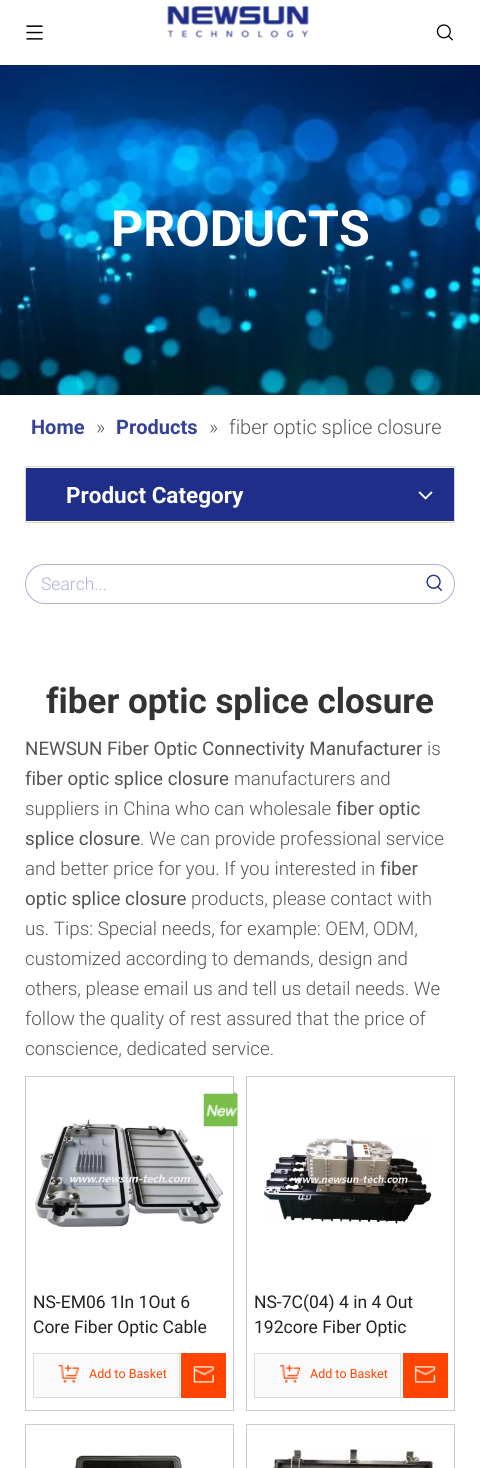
import math
import cairo


def use_color(cr, r, g, b):
  cr.set_source_rgb(r / 255, g / 255, b / 255)

def text(cr, x, y, s, family, size, color, bold=False, italic=False):
  cr.select_font_face(family, cairo.FONT_SLANT_ITALIC if italic else cairo.FONT_SLANT_NORMAL, cairo.FONT_WEIGHT_BOLD if bold else cairo.FONT_WEIGHT_NORMAL)
  cr.set_font_size(size)
  use_color(cr, *color)
  cr.move_to(x, y)
  cr.show_text(s)

def box(cr, x, y, w, h, *color):
  use_color(cr, *color)
  cr.rectangle(x, y, w, h)
  cr.fill()

def round_rect(cr, x, y, w, h, r):
  cr.new_sub_path()
  for i, (u, v) in enumerate([(x + w - r, y + h - r), (x + r, y + h - r), (x + r, y + r), (x + w - r, y + r)]):
    cr.arc(u, v, r, i * math.pi / 2, (i + 1) * math.pi / 2)
  cr.close_path()

def picture(cr, path, x, y, w, h):
  cr.save()
  cr.set_source_surface(cairo.ImageSurface.create_from_png(path), x, y)
  cr.rectangle(x, y, w, h)
  cr.fill()
  cr.restore()

def draw(cr):
  use_color(cr, 255, 255, 255)
  cr.paint()
  picture(cr, "img_01.png", 26, 25, 17, 15)
  picture(cr, "img_02.png", 167, 6, 142, 32)
  picture(cr, "img_03.png", 436, 24, 17, 17)
  picture(cr, "img_04.png", 0, 65, 480, 330)
  cr.rectangle(25.5, 466.5, 429, 56)
  use_color(cr, 214, 214, 214)
  cr.set_line_width(1)
  cr.stroke()
  box(cr, 26, 468, 428, 53, 31, 46, 137)
  picture(cr, "img_05.png", 418, 491, 15, 9)
  round_rect(cr, 25.5, 564.5, 429, 39, 19.5)
  use_color(cr, 172, 178, 214)
  cr.stroke()
  picture(cr, "img_06.png", 426, 574, 17, 17)
  cr.rectangle(25.5, 1076.5, 208, 334)
  use_color(cr, 204, 204, 204)
  cr.stroke()
  picture(cr, "img_08.png", 35, 1119, 189, 108)
  picture(cr, "img_07.png", 203, 1091, 35, 36)
  use_color(cr, 250, 250, 250)
  cr.rectangle(33.5, 1353.5, 146, 44)
  cr.fill_preserve()
  use_color(cr, 220, 220, 220)
  cr.stroke()
  picture(cr, "img_09.png", 58, 1364, 21, 19)
  box(cr, 181, 1353, 45, 45, 255, 68, 0)
  picture(cr, "img_10.png", 193, 1366, 21, 17)
  cr.rectangle(246.5, 1076.5, 208, 334)
  use_color(cr, 204, 204, 204)
  cr.stroke()
  picture(cr, "img_11.png", 263, 1138, 169, 86)
  use_color(cr, 250, 250, 250)
  cr.rectangle(254.5, 1353.5, 146, 44)
  cr.fill_preserve()
  use_color(cr, 220, 220, 220)
  cr.stroke()
  picture(cr, "img_12.png", 279, 1364, 22, 19)
  box(cr, 403, 1353, 45, 45, 255, 68, 0)
  picture(cr, "img_13.png", 414, 1366, 22, 17)
  cr.rectangle(25.5, 1424.5, 208, 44)
  use_color(cr, 204, 204, 204)
  cr.stroke()
  picture(cr, "img_14.png", 75, 1455, 108, 13)
  cr.rectangle(246.5, 1424.5, 208, 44)
  cr.stroke()
  picture(cr, "img_15.png", 273, 1449, 161, 19)
  text(cr, 111, 246, "PRODUCTS", "Roboto", 50, (255, 255, 255), bold=True)
  text(cr, 31, 434, "Home", "Roboto", 20, (53, 68, 153), bold=True)
  text(cr, 96, 434, "»", "Roboto Light", 20, (84, 84, 84))
  text(cr, 116, 434, "Products", "Roboto", 20, (53, 68, 153), bold=True)
  text(cr, 209, 434, "»", "Roboto Light", 20, (84, 84, 84))
  text(cr, 229, 434, "fiber optic splice closure", "Roboto Light", 20, (84, 84, 84))
  text(cr, 66, 503, "Product Category", "Roboto", 22.5, (255, 255, 255), bold=True)
  text(cr, 41, 590, "Search...", "Roboto Light", 17.5, (172, 178, 214))
  text(cr, 46, 713, "fiber optic splice closure", "Roboto", 35, (51, 51, 51), bold=True)
  text(cr, 25, 755, "NEWSUN Fiber Optic Connectivity Manufacturer", "Roboto", 18.75, (84, 84, 84))
  text(cr, 427, 755, "is", "Roboto Light", 18.75, (84, 84, 84))
  text(cr, 25, 785, "fiber optic splice closure", "Roboto", 18.75, (84, 84, 84))
  text(cr, 234, 785, "manufacturers and", "Roboto Light", 18.75, (84, 84, 84))
  text(cr, 25, 815, "suppliers in China who can wholesale", "Roboto Light", 18.75, (84, 84, 84))
  text(cr, 336, 815, "fiber optic", "Roboto", 18.75, (84, 84, 84))
  text(cr, 25, 845, "splice closure", "Roboto", 18.75, (84, 84, 84))
  text(cr, 140, 845, ". We can provide professional service", "Roboto Light", 18.75, (84, 84, 84))
  text(cr, 25, 875, "and better price for you. If you interested in", "Roboto Light", 18.75, (84, 84, 84))
  text(cr, 380, 875, "fiber", "Roboto", 18.75, (84, 84, 84))
  text(cr, 25, 905, "optic splice closure", "Roboto", 18.75, (84, 84, 84))
  text(cr, 191, 905, "products, please contact with", "Roboto Light", 18.75, (84, 84, 84))
  text(cr, 25, 935, "us. Tips: Special needs, for example: OEM, ODM,", "Roboto Light", 18.75, (84, 84, 84))
  text(cr, 25, 965, "customized according to demands, design and", "Roboto Light", 18.75, (84, 84, 84))
  text(cr, 25, 995, "others, please email us and tell us detail needs. We", "Roboto Light", 18.75, (84, 84, 84))
  text(cr, 25, 1025, "follow the quality of rest assured that the price of", "Roboto Light", 18.75, (84, 84, 84))
  text(cr, 25, 1055, "conscience, dedicated service.", "Roboto Light", 18.75, (84, 84, 84))
  text(cr, 33, 1308, "NS-EM06 1In 1Out 6", "Roboto", 17.5, (34, 34, 34))
  text(cr, 33, 1333, "Core Fiber Optic Cable", "Roboto", 17.5, (34, 34, 34))
  text(cr, 89, 1378, "Add to Basket", "Roboto", 12.5, (255, 68, 0))
  text(cr, 254, 1308, "NS-7C(04) 4 in 4 Out", "Roboto", 17.5, (34, 34, 34))
  text(cr, 254, 1333, "192core Fiber Optic", "Roboto", 17.5, (34, 34, 34))
  text(cr, 310, 1378, "Add to Basket", "Roboto", 12.5, (255, 68, 0))


surface = cairo.ImageSurface(cairo.FORMAT_RGB24, 480, 1468)
cr = cairo.Context(surface)
options = cairo.FontOptions()
options.set_hint_metrics(cairo.HINT_METRICS_OFF)
options.set_hint_style(cairo.HINT_STYLE_NONE)
cr.set_font_options(options)
cr.set_miter_limit(4)
draw(cr)
surface.write_to_png("out.png")
